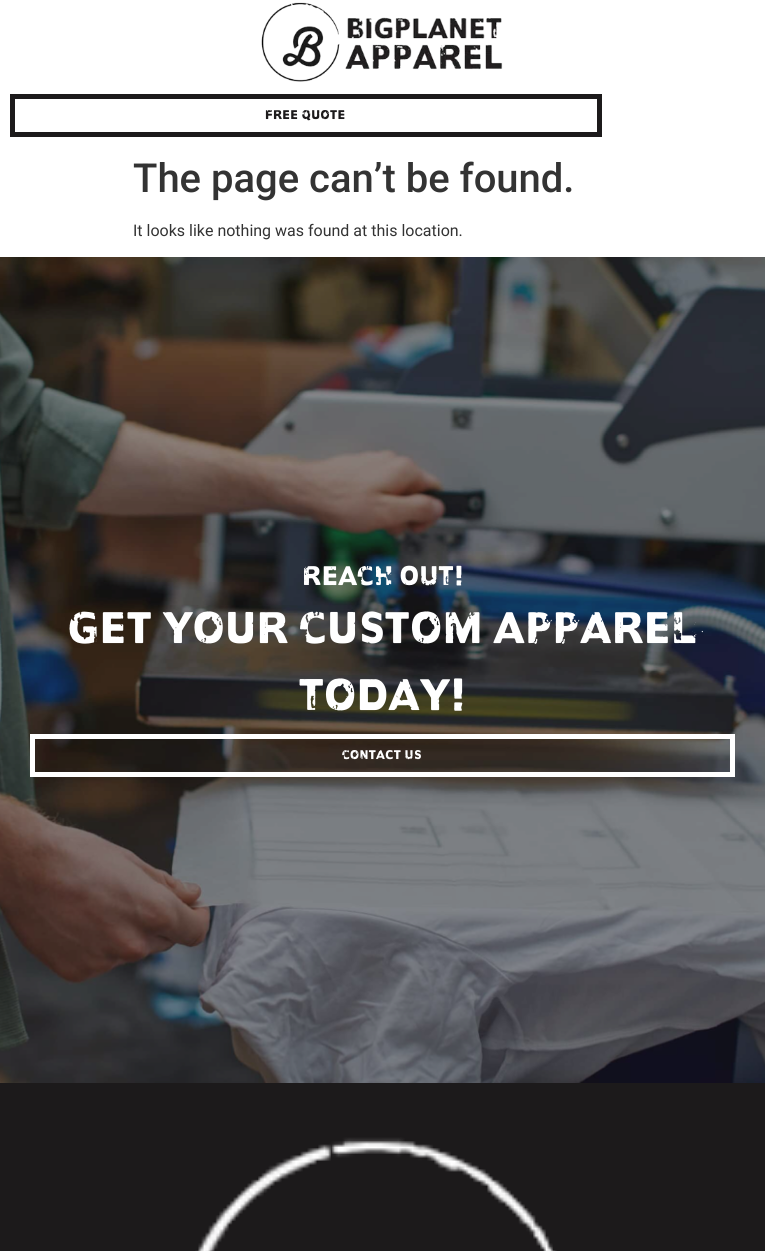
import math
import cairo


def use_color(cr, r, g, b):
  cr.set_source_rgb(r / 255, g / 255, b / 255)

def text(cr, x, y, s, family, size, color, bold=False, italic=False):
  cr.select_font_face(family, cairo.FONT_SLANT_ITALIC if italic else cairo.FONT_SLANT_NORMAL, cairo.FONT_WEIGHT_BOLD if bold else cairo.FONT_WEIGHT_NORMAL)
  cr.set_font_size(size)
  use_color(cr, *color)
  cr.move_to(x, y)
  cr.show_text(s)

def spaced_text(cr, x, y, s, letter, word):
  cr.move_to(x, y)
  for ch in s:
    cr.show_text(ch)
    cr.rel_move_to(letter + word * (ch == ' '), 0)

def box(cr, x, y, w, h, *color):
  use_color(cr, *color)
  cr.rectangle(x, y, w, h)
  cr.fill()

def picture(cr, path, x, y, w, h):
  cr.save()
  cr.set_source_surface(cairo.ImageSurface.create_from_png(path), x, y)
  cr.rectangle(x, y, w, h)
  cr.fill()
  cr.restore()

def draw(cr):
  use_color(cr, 255, 255, 255)
  cr.paint()
  picture(cr, "img_01.png", 261, 2, 242, 80)
  cr.rectangle(12.5, 96.5, 587, 38)
  use_color(cr, 28, 26, 27)
  cr.set_line_width(5)
  cr.stroke()
  picture(cr, "img_02.png", 0, 257, 765, 826)
  cr.rectangle(32.5, 736.5, 700, 38)
  use_color(cr, 255, 255, 255)
  cr.stroke()
  box(cr, 0, 1083, 765, 168, 28, 26, 27)
  picture(cr, "img_03.png", 195, 1137, 362, 114)
  cr.select_font_face("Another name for")
  cr.set_font_size(12.75)
  spaced_text(cr, 265, 119, "Free Quote", 0.25, 0)
  text(cr, 133, 192, "The page can’t be found.", "Roboto Medium", 40, (51, 51, 51))
  text(cr, 133, 236, "It looks like nothing was found at this location.", "Roboto", 16, (51, 51, 51))
  text(cr, 302, 585, "REACH OUT!", "Another name for", 27.25, (255, 255, 255))
  text(cr, 68, 643, "Get Your Custom Apparel", "Another name for", 44.75, (255, 255, 255))
  text(cr, 299, 710, "Today!", "Another name for", 44.75, (255, 255, 255))
  cr.set_font_size(12.75)
  spaced_text(cr, 342, 759, "Contact Us", 0.25, 0)


surface = cairo.ImageSurface(cairo.FORMAT_RGB24, 765, 1251)
cr = cairo.Context(surface)
options = cairo.FontOptions()
options.set_hint_metrics(cairo.HINT_METRICS_OFF)
options.set_hint_style(cairo.HINT_STYLE_NONE)
cr.set_font_options(options)
cr.set_miter_limit(4)
draw(cr)
surface.write_to_png("out.png")
